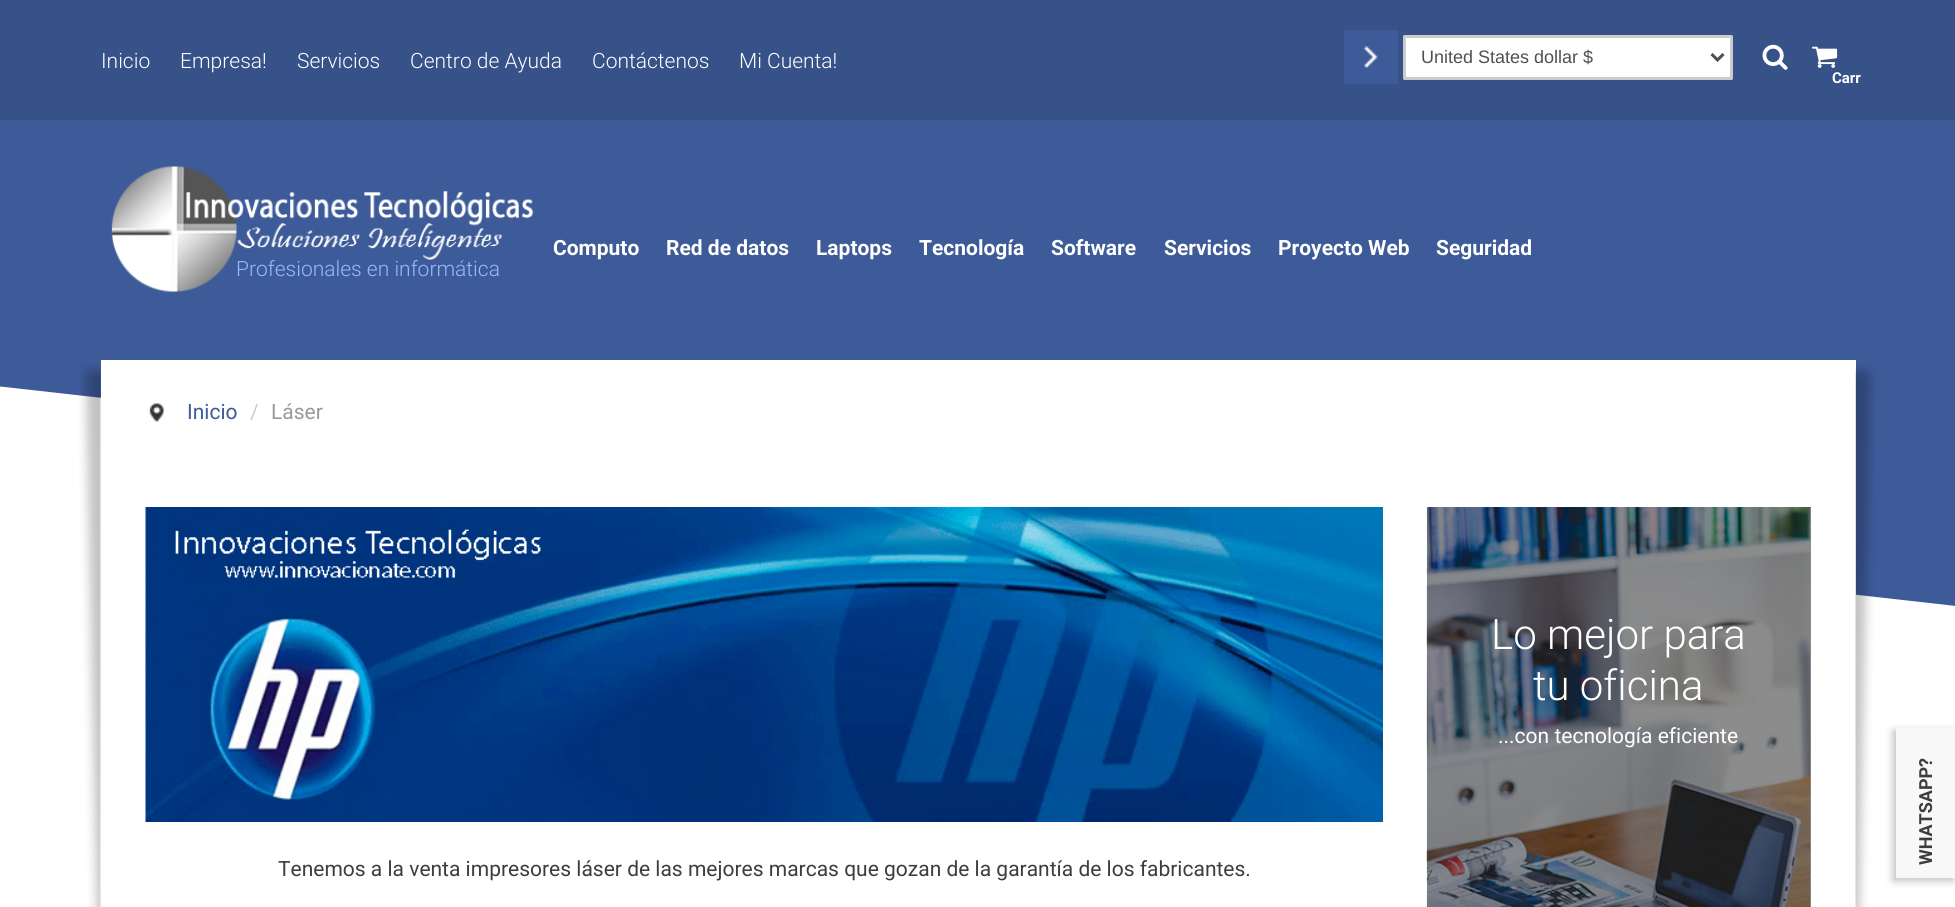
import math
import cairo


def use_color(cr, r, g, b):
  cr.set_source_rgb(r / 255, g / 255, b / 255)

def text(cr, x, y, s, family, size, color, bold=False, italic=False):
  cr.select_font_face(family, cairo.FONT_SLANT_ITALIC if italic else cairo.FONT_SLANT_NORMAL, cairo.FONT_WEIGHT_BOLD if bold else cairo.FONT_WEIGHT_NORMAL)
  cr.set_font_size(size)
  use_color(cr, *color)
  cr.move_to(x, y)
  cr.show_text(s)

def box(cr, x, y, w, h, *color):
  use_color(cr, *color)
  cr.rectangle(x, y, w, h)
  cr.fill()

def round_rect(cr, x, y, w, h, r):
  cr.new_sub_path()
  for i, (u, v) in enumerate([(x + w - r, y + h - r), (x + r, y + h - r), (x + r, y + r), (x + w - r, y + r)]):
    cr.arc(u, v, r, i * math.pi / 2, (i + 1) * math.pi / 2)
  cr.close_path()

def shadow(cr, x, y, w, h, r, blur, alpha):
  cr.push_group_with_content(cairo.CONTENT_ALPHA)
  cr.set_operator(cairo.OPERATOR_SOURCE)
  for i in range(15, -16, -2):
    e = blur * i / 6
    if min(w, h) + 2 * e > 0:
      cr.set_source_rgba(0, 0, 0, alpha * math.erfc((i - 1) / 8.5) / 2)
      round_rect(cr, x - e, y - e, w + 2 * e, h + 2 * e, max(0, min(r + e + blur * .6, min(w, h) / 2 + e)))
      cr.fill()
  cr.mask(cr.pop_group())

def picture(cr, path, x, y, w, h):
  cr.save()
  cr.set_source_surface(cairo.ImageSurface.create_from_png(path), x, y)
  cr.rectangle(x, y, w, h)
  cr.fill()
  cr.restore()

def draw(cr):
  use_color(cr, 255, 255, 255)
  cr.paint()
  use_color(cr, 61, 90, 153)
  cr.new_path()
  cr.move_to(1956, 0)
  cr.line_to(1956, 606)
  cr.line_to(-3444, 0)
  cr.close_path()
  cr.fill()
  box(cr, 0, 0, 1955, 120, 55, 81, 137)
  box(cr, 1344, 30, 54, 54, 61, 90, 153)
  picture(cr, "img_01.png", 1363, 46, 15, 22)
  use_color(cr, 255, 255, 255)
  round_rect(cr, 1403, 35, 330, 45, 1.5)
  cr.fill()
  cr.rectangle(1404.5, 36.5, 327, 42)
  cr.set_source_rgba(0, 0, 0, 0.2)
  cr.set_line_width(3)
  cr.stroke()
  cr.new_path()
  cr.move_to(1711.5, 54)
  cr.line_to(1717.5, 60)
  cr.line_to(1723.5, 54)
  use_color(cr, 80, 80, 80)
  cr.stroke()
  picture(cr, "img_02.png", 1762, 44, 26, 26)
  picture(cr, "img_03.png", 1812, 46, 26, 22)
  box(cr, 101, 360, 1755, 235, 255, 255, 255)
  picture(cr, "img_05.png", 79, 364, 22, 543)
  picture(cr, "img_06.png", 149, 403, 15, 19)
  picture(cr, "img_07.png", 1855, 364, 21, 543)
  picture(cr, "img_08.png", 1426, 507, 385, 400)
  cr.set_source_rgba(0, 0, 0, 0.45)
  cr.rectangle(1427, 507, 384, 400)
  cr.fill()
  picture(cr, "img_09.png", 145, 507, 1238, 315)
  use_color(cr, 0, 0, 0)
  shadow(cr, 1893, 731, 60, 150, 0, 4, 0.25)
  box(cr, 1896, 728, 59, 150, 248, 248, 248)
  text(cr, 101, 68, "Inicio", "Roboto Light", 21, (255, 255, 255))
  text(cr, 180, 68, "Empresa!", "Roboto Light", 21, (255, 255, 255))
  text(cr, 297, 68, "Servicios", "Roboto Light", 21, (255, 255, 255))
  text(cr, 410, 68, "Centro de Ayuda", "Roboto Light", 21, (255, 255, 255))
  text(cr, 592, 68, "Contáctenos", "Roboto Light", 21, (255, 255, 255))
  text(cr, 739, 68, "Mi Cuenta!", "Roboto Light", 21, (255, 255, 255))
  text(cr, 1421, 63, "United States dollar $", "Liberation Sans", 18, (80, 80, 80))
  cr.save()
  round_rect(cr, 1832, 63, 30, 30, 15)
  cr.clip()
  text(cr, 1832, 83, "Carr", "Roboto", 15, (255, 255, 255), bold=True)
  cr.restore()
  text(cr, 553, 255, "Computo", "Roboto", 21, (255, 255, 255), bold=True)
  text(cr, 666, 255, "Red de datos", "Roboto", 21, (255, 255, 255), bold=True)
  text(cr, 816, 255, "Laptops", "Roboto", 21, (255, 255, 255), bold=True)
  text(cr, 919, 255, "Tecnología", "Roboto", 21, (255, 255, 255), bold=True)
  text(cr, 1051, 255, "Software", "Roboto", 21, (255, 255, 255), bold=True)
  text(cr, 1164, 255, "Servicios", "Roboto", 21, (255, 255, 255), bold=True)
  text(cr, 1278, 255, "Proyecto Web", "Roboto", 21, (255, 255, 255), bold=True)
  text(cr, 1436, 255, "Seguridad", "Roboto", 21, (255, 255, 255), bold=True)
  text(cr, 236, 276, "Profesionales en informática", "Roboto Light", 21, (153, 185, 255))
  picture(cr, "img_04.png", 111, 166, 423, 126)
  text(cr, 187, 419, "Inicio", "Roboto", 21, (61, 90, 153))
  text(cr, 250, 419, "/", "Roboto", 21, (204, 204, 204))
  text(cr, 271, 419, "Láser", "Roboto", 21, (153, 153, 153))
  text(cr, 1491, 649, "Lo mejor para", "Roboto Light", 42, (255, 255, 255))
  text(cr, 1533, 700, "tu oficina", "Roboto Light", 42, (255, 255, 255))
  text(cr, 1498, 743, "...con tecnología eficiente", "Roboto", 21, (255, 255, 255))
  text(cr, 278, 876, "Tenemos a la venta impresores láser de las mejores marcas que gozan de la garantía de los fabricantes.", "Roboto", 21, (61, 61, 61))
  cr.save()
  cr.translate(1932, 865)
  cr.rotate(-90 * math.pi / 180)
  text(cr, 0, 0, "WHATSAPP?", "Roboto", 18, (61, 61, 61), bold=True)
  cr.restore()


surface = cairo.ImageSurface(cairo.FORMAT_RGB24, 1955, 907)
cr = cairo.Context(surface)
options = cairo.FontOptions()
options.set_hint_metrics(cairo.HINT_METRICS_OFF)
options.set_hint_style(cairo.HINT_STYLE_NONE)
cr.set_font_options(options)
cr.set_miter_limit(4)
draw(cr)
surface.write_to_png("out.png")
